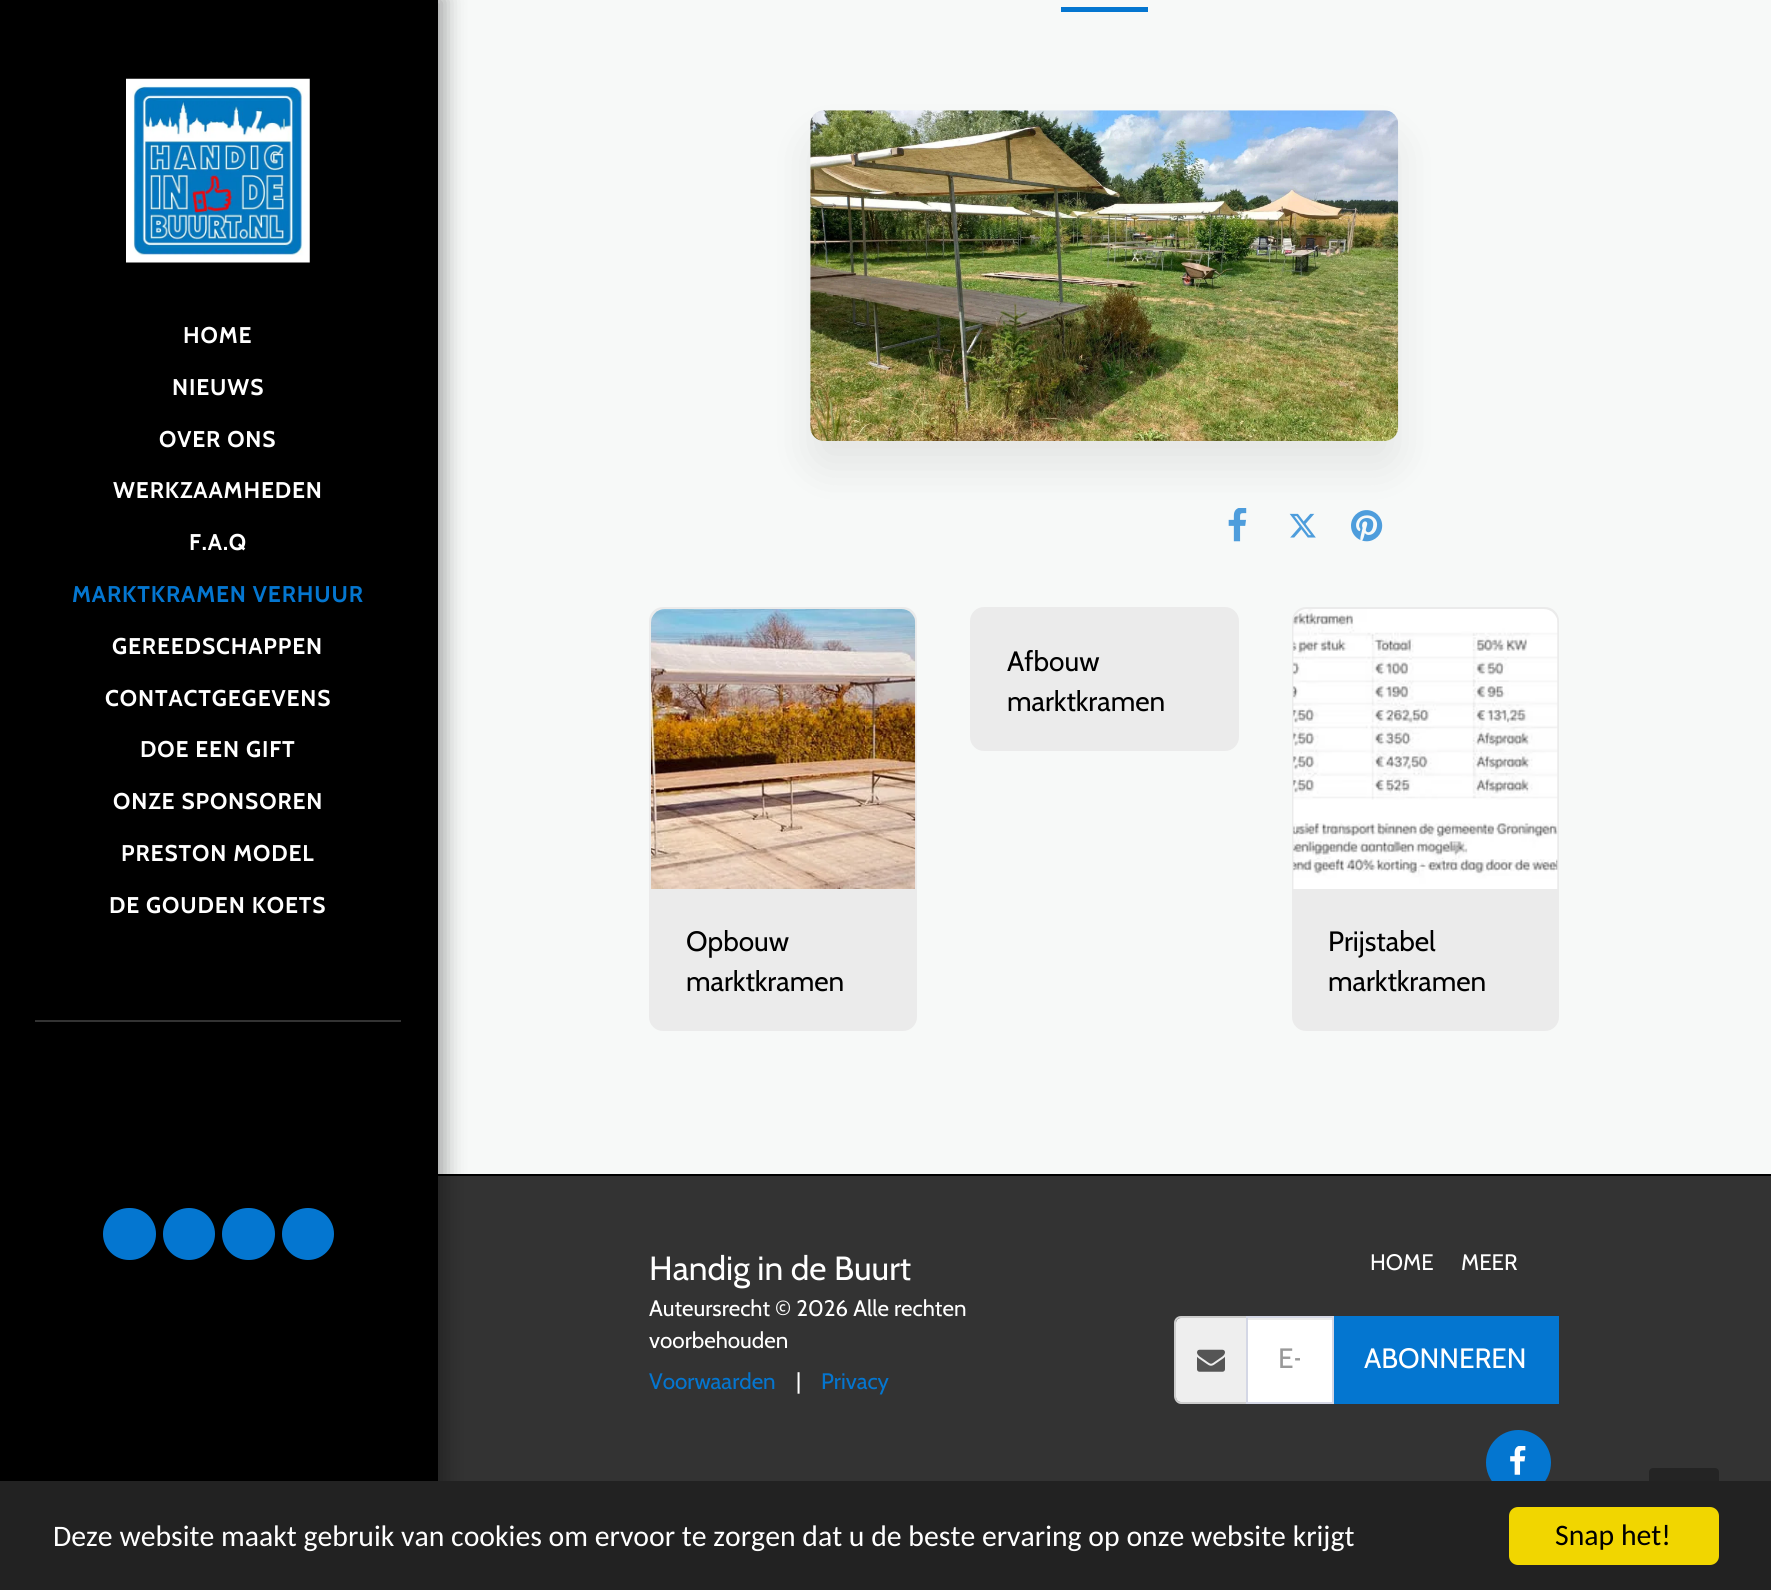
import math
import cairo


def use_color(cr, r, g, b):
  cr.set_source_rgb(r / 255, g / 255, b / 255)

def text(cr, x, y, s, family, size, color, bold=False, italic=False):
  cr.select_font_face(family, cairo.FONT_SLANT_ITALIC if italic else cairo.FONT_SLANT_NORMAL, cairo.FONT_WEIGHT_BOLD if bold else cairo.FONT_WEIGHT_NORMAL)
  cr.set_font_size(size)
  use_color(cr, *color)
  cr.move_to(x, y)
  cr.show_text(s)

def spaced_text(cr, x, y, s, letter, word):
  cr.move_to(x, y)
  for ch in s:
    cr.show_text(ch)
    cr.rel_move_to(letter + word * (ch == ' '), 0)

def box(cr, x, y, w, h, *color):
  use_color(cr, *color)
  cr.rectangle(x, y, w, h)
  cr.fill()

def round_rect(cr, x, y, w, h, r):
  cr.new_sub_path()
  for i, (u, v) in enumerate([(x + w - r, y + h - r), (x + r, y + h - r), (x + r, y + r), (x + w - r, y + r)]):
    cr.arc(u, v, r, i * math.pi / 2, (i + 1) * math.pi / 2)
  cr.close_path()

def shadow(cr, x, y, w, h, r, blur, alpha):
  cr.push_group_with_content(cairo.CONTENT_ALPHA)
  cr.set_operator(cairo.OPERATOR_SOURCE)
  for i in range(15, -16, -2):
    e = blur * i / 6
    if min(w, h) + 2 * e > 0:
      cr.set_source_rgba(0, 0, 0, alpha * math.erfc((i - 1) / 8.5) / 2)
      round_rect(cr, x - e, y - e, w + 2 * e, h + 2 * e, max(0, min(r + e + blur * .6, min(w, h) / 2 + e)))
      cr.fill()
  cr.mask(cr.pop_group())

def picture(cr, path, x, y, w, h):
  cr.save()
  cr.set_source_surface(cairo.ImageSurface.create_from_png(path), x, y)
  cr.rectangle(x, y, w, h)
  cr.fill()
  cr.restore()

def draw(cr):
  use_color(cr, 247, 249, 248)
  cr.paint()
  box(cr, 438, 1176, 1333, 305, 51, 51, 51)
  box(cr, 438, 1174, 1333, 2, 0, 0, 0)
  use_color(cr, 0, 0, 0)
  shadow(cr, 0, -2, 445, 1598, 0, 10.5, 0.35)
  box(cr, 0, 0, 438, 1481, 0, 0, 0)
  picture(cr, "img_01.png", 126, 78, 184, 185)
  box(cr, 35, 1020, 366, 2, 51, 51, 51)
  use_color(cr, 4, 118, 208)
  round_rect(cr, 103, 1208, 53, 52, 26)
  cr.fill()
  cr.arc(189, 1234, 26, 0, 2 * math.pi)
  cr.fill()
  round_rect(cr, 222, 1208, 53, 52, 26)
  cr.fill()
  cr.arc(308, 1234, 26, 0, 2 * math.pi)
  cr.fill()
  box(cr, 1061, 7, 87, 5, 4, 118, 208)
  use_color(cr, 0, 0, 0)
  shadow(cr, 810, 137, 588, 330, 14, 22, 0.08)
  picture(cr, "img_02.png", 810, 110, 589, 331)
  picture(cr, "img_03.png", 1228, 508, 19, 34)
  picture(cr, "img_04.png", 1289, 513, 27, 25)
  picture(cr, "img_05.png", 1351, 510, 32, 32)
  use_color(cr, 235, 235, 235)
  round_rect(cr, 971, 608, 267, 142, 13)
  cr.fill_preserve()
  cr.stroke()
  round_rect(cr, 650, 608, 266, 422, 13)
  cr.fill_preserve()
  cr.stroke()
  picture(cr, "img_06.png", 651, 609, 265, 280)
  round_rect(cr, 1293, 608, 265, 422, 13)
  cr.fill_preserve()
  cr.stroke()
  picture(cr, "img_07.png", 1293, 609, 265, 280)
  use_color(cr, 238, 238, 238)
  cr.new_path()
  cr.move_to(1181, 1318)
  cr.line_to(1246, 1318)
  cr.line_to(1246, 1402)
  cr.line_to(1181, 1402)
  cr.curve_to(1178, 1402, 1176, 1400, 1176, 1397)
  cr.line_to(1176, 1323)
  cr.curve_to(1176, 1320, 1178, 1318, 1181, 1318)
  cr.close_path()
  cr.fill()
  use_color(cr, 204, 204, 204)
  cr.set_fill_rule(cairo.FILL_RULE_EVEN_ODD)
  cr.new_path()
  cr.move_to(1181, 1316)
  cr.line_to(1246, 1316)
  cr.line_to(1246, 1404)
  cr.line_to(1181, 1404)
  cr.curve_to(1177, 1404, 1174, 1400, 1174, 1396)
  cr.line_to(1174, 1323)
  cr.curve_to(1174, 1319, 1177, 1316, 1181, 1316)
  cr.close_path()
  cr.move_to(1181, 1318)
  cr.line_to(1246, 1318)
  cr.line_to(1246, 1402)
  cr.line_to(1181, 1402)
  cr.curve_to(1178, 1402, 1176, 1399, 1176, 1396)
  cr.line_to(1176, 1323)
  cr.curve_to(1176, 1320, 1178, 1318, 1181, 1318)
  cr.close_path()
  cr.fill()
  picture(cr, "img_08.png", 1197, 1349, 28, 23)
  box(cr, 1248, 1320, 84, 82, 255, 255, 255)
  box(cr, 1248, 1318, 84, 2, 236, 236, 236)
  cr.rectangle(1247, 1317, 86, 86)
  use_color(cr, 212, 215, 229)
  cr.stroke()
  box(cr, 1334, 1316, 225, 88, 4, 118, 208)
  cr.arc(1518.5, 1462.5, 31.5, 0, 2 * math.pi)
  cr.fill_preserve()
  cr.stroke()
  picture(cr, "img_09.png", 1510, 1446, 16, 29)
  use_color(cr, 36, 36, 36)
  round_rect(cr, 1649, 1468, 70, 70, 4)
  cr.fill()
  box(cr, 0, 1481, 1771, 109, 34, 34, 34)
  use_color(cr, 241, 214, 0)
  round_rect(cr, 1509, 1507, 210, 58, 9)
  cr.fill()
  cr.select_font_face("Cabin", cairo.FONT_SLANT_NORMAL, cairo.FONT_WEIGHT_BOLD)
  cr.set_font_size(22.75)
  use_color(cr, 255, 255, 255)
  spaced_text(cr, 183, 343, "HOME", 0.9, 0)
  spaced_text(cr, 172, 395, "NIEUWS", 0.9, 0)
  spaced_text(cr, 159, 447, "OVER ONS", 0.9, 0)
  spaced_text(cr, 113, 498, "WERKZAAMHEDEN", 0.9, 0)
  spaced_text(cr, 189, 550, "F.A.Q", 0.9, 0)
  use_color(cr, 4, 118, 208)
  spaced_text(cr, 72, 602, "MARKTKRAMEN VERHUUR", 0.9, 0)
  use_color(cr, 255, 255, 255)
  spaced_text(cr, 112, 654, "GEREEDSCHAPPEN", 0.9, 0)
  spaced_text(cr, 105, 706, "CONTACTGEGEVENS", 0.9, 0)
  spaced_text(cr, 140, 757, "DOE EEN GIFT", 0.9, 0)
  spaced_text(cr, 113, 809, "ONZE SPONSOREN", 0.9, 0)
  spaced_text(cr, 121, 861, "PRESTON MODEL", 0.9, 0)
  spaced_text(cr, 109, 913, "DE GOUDEN KOETS", 0.9, 0)
  text(cr, 1007, 671, "Afbouw", "Cabin", 28, (0, 0, 0))
  text(cr, 1007, 711, "marktkramen", "Cabin", 28, (0, 0, 0))
  text(cr, 686, 951, "Opbouw", "Cabin", 28, (0, 0, 0))
  text(cr, 686, 991, "marktkramen", "Cabin", 28, (0, 0, 0))
  text(cr, 1328, 951, "Prijstabel", "Cabin", 28, (0, 0, 0))
  text(cr, 1328, 991, "marktkramen", "Cabin", 28, (0, 0, 0))
  text(cr, 649, 1280, "Handig in de Buurt", "Cabin", 33.5, (255, 255, 255))
  text(cr, 649, 1316, "Auteursrecht © 2026 Alle rechten", "Cabin", 22.4, (255, 255, 255))
  text(cr, 649, 1348, "voorbehouden", "Cabin", 22.4, (255, 255, 255))
  text(cr, 649, 1389, "Voorwaarden", "Cabin", 22.4, (4, 118, 208))
  text(cr, 796, 1389, "|", "Cabin", 22.4, (255, 255, 255))
  text(cr, 821, 1389, "Privacy", "Cabin", 22.4, (4, 118, 208))
  text(cr, 1370, 1270, "HOME", "Cabin", 22.4, (255, 255, 255))
  text(cr, 1461, 1270, "MEER", "Cabin", 22.4, (255, 255, 255))
  cr.save()
  cr.set_fill_rule(cairo.FILL_RULE_WINDING)
  cr.rectangle(1278, 1341, 22, 33)
  cr.clip()
  text(cr, 1278, 1368, "E-", "Cabin", 28, (153, 153, 153))
  cr.restore()
  text(cr, 1364, 1368, "ABONNEREN", "Cabin", 28, (255, 255, 255))
  text(cr, 53, 1546, "Deze website maakt gebruik van cookies om ervoor te zorgen dat u de beste ervaring op onze website krijgt", "Carlito", 29.75, (255, 255, 255))
  text(cr, 1555, 1545, "Snap het!", "Carlito", 29.75, (0, 0, 0))


surface = cairo.ImageSurface(cairo.FORMAT_RGB24, 1771, 1590)
cr = cairo.Context(surface)
options = cairo.FontOptions()
options.set_hint_metrics(cairo.HINT_METRICS_OFF)
options.set_hint_style(cairo.HINT_STYLE_NONE)
cr.set_font_options(options)
cr.set_miter_limit(4)
draw(cr)
surface.write_to_png("out.png")
